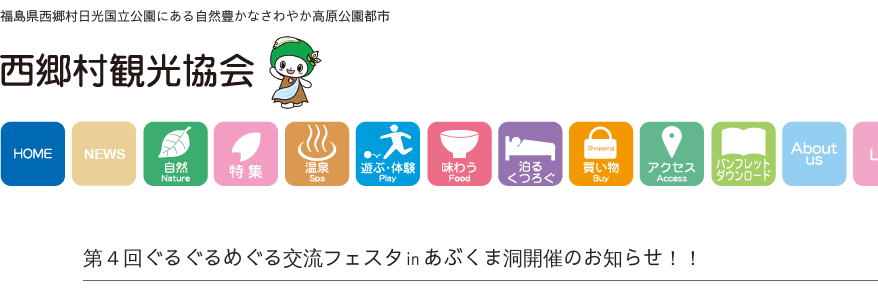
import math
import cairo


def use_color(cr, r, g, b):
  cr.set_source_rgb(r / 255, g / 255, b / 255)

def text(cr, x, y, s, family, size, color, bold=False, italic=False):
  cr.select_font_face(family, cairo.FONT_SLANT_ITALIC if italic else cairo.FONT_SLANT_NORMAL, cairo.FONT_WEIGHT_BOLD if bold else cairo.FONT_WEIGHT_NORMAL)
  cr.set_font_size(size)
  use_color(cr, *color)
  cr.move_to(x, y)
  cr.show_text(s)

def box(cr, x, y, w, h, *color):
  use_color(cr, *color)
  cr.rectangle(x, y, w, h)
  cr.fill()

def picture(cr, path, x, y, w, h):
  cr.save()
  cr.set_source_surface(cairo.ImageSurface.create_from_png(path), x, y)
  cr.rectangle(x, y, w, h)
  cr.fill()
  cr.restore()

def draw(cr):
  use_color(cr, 255, 255, 255)
  cr.paint()
  picture(cr, "img_01.png", 0, 36, 322, 73)
  picture(cr, "img_02.png", 0, 121, 72, 65)
  picture(cr, "img_03.png", 72, 121, 64, 65)
  picture(cr, "img_04.png", 143, 121, 71, 65)
  picture(cr, "img_05.png", 214, 121, 64, 65)
  picture(cr, "img_06.png", 285, 121, 71, 65)
  picture(cr, "img_07.png", 356, 121, 64, 65)
  picture(cr, "img_08.png", 427, 121, 65, 65)
  picture(cr, "img_09.png", 498, 121, 65, 65)
  picture(cr, "img_10.png", 569, 121, 71, 65)
  picture(cr, "img_11.png", 640, 121, 64, 65)
  picture(cr, "img_12.png", 711, 121, 65, 65)
  picture(cr, "img_13.png", 782, 121, 65, 65)
  picture(cr, "img_14.png", 853, 121, 25, 65)
  box(cr, 83, 280, 795, 1, 102, 102, 102)
  text(cr, 0, 21, "福島県西郷村日光国立公園にある自然豊かなさわやか高原公園都市", "Sawarabi Gothic", 13, (34, 34, 34))
  text(cr, 83, 265, "第４回", "WenQuanYi Zen Hei Medium", 20, (34, 34, 34))
  text(cr, 143, 265, "ぐるぐるめぐる", "Sawarabi Gothic", 20, (34, 34, 34))
  text(cr, 283, 265, "交流", "WenQuanYi Zen Hei Medium", 20, (34, 34, 34))
  text(cr, 323, 265, "フェスタ", "Sawarabi Gothic", 20, (34, 34, 34))
  text(cr, 403, 265, "㏌", "WenQuanYi Zen Hei Medium", 20, (34, 34, 34))
  text(cr, 423, 265, "あぶくま", "Sawarabi Gothic", 20, (34, 34, 34))
  text(cr, 503, 265, "洞開催", "WenQuanYi Zen Hei Medium", 20, (34, 34, 34))
  text(cr, 563, 265, "のお", "Sawarabi Gothic", 20, (34, 34, 34))
  text(cr, 603, 265, "知", "WenQuanYi Zen Hei Medium", 20, (34, 34, 34))
  text(cr, 623, 265, "らせ", "Sawarabi Gothic", 20, (34, 34, 34))
  text(cr, 663, 265, "！！", "WenQuanYi Zen Hei Medium", 20, (34, 34, 34))


surface = cairo.ImageSurface(cairo.FORMAT_RGB24, 878, 303)
cr = cairo.Context(surface)
options = cairo.FontOptions()
options.set_hint_metrics(cairo.HINT_METRICS_OFF)
options.set_hint_style(cairo.HINT_STYLE_NONE)
cr.set_font_options(options)
cr.set_miter_limit(4)
draw(cr)
surface.write_to_png("out.png")
